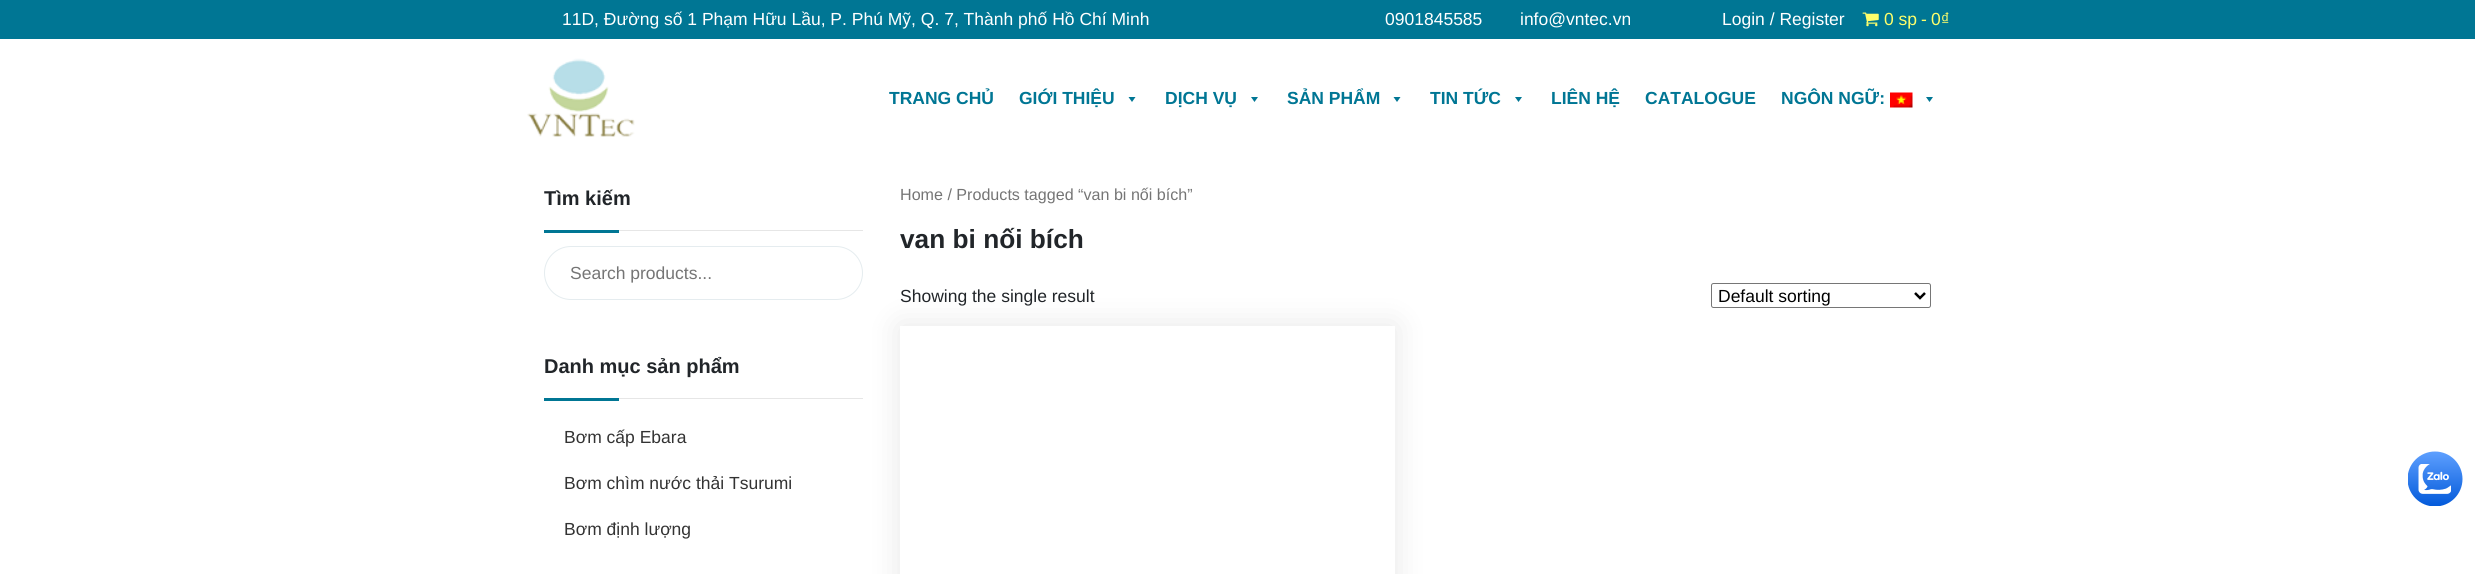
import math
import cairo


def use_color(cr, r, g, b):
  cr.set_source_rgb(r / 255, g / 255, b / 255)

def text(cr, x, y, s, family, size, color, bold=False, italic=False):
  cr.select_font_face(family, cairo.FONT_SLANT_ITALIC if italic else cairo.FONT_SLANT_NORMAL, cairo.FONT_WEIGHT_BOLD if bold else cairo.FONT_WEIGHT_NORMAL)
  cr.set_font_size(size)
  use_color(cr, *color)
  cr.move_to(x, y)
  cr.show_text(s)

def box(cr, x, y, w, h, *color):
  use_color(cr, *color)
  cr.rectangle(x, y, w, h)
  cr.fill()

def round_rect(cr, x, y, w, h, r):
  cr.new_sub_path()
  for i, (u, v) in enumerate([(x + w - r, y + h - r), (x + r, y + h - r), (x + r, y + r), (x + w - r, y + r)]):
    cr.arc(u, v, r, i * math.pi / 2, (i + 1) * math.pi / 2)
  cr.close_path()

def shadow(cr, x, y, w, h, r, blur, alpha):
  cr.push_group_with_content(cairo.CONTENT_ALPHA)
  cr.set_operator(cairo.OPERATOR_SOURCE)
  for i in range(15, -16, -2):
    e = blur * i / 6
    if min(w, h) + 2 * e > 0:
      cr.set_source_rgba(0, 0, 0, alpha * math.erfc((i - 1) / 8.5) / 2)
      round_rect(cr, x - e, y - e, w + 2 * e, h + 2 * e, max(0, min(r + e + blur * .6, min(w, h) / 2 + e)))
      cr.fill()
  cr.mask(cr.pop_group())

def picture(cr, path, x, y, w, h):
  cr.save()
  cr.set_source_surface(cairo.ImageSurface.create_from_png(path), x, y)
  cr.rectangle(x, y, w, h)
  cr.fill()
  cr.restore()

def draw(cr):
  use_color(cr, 255, 255, 255)
  cr.paint()
  box(cr, 0, 0, 2475, 39, 0, 118, 148)
  picture(cr, "img_01.png", 1862, 12, 17, 15)
  picture(cr, "img_02.png", 527, 58, 108, 79)
  cr.new_path()
  cr.move_to(1135.5, 97)
  cr.line_to(1132, 102)
  cr.line_to(1128.5, 97)
  cr.close_path()
  cr.fill()
  cr.new_path()
  cr.move_to(1258, 97)
  cr.line_to(1254.5, 102)
  cr.line_to(1251, 97)
  cr.close_path()
  cr.fill()
  cr.new_path()
  cr.move_to(1400.5, 97)
  cr.line_to(1397, 102)
  cr.line_to(1393.5, 97)
  cr.close_path()
  cr.fill()
  cr.new_path()
  cr.move_to(1522, 97)
  cr.line_to(1518.5, 102)
  cr.line_to(1515, 97)
  cr.close_path()
  cr.fill()
  picture(cr, "img_03.png", 1890, 92, 23, 16)
  cr.new_path()
  cr.move_to(1933, 97)
  cr.line_to(1929.5, 102)
  cr.line_to(1926, 97)
  cr.close_path()
  cr.fill()
  box(cr, 619, 230, 244, 1, 230, 230, 230)
  box(cr, 544, 230, 75, 3, 0, 118, 148)
  round_rect(cr, 544.5, 246.5, 318, 53, 26.5)
  use_color(cr, 229, 236, 239)
  cr.set_line_width(1)
  cr.stroke()
  box(cr, 619, 398, 244, 1, 230, 230, 230)
  box(cr, 544, 398, 75, 3, 0, 118, 148)
  cr.save()
  cr.set_fill_rule(cairo.FILL_RULE_EVEN_ODD)
  cr.new_path()
  cr.move_to(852, 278)
  cr.line_to(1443, 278)
  cr.line_to(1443, 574)
  cr.line_to(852, 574)
  cr.close_path()
  cr.move_to(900, 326)
  cr.line_to(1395, 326)
  cr.line_to(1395, 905)
  cr.line_to(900, 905)
  cr.close_path()
  cr.clip()
  use_color(cr, 0, 0, 0)
  shadow(cr, 900, 326, 495, 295, 0, 15.5, 0.1)
  cr.restore()
  round_rect(cr, 1711.5, 283.5, 219, 24, 2)
  use_color(cr, 118, 118, 118)
  cr.stroke()
  cr.new_path()
  cr.move_to(1915, 293)
  cr.line_to(1920, 298)
  cr.line_to(1925, 293)
  use_color(cr, 0, 0, 0)
  cr.set_line_width(2.5)
  cr.stroke()
  picture(cr, "img_04.png", 2408, 451, 55, 55)
  text(cr, 562, 25, "11D, Đường số 1 Phạm Hữu Lầu, P. Phú Mỹ, Q. 7, Thành phố Hồ Chí Minh", "Liberation Sans", 17.5, (255, 255, 255))
  text(cr, 1385, 25, "0901845585", "Liberation Sans", 17.5, (255, 255, 255))
  text(cr, 1520, 25, "info@vntec.vn", "Liberation Sans", 17.5, (255, 255, 255))
  text(cr, 1722, 25, "Login / Register", "Liberation Sans", 17.5, (255, 255, 255))
  text(cr, 1884, 25, "0 sp", "Liberation Sans", 17.5, (255, 255, 107))
  text(cr, 1921, 25, "-", "Liberation Sans", 17.5, (255, 255, 107))
  text(cr, 1931, 25, "0₫", "Liberation Sans", 17.5, (255, 255, 107))
  text(cr, 889, 104, "TRANG CHỦ", "Liberation Sans", 17.5, (0, 118, 148), bold=True)
  text(cr, 1019, 104, "GIỚI THIỆU", "Liberation Sans", 17.5, (0, 118, 148), bold=True)
  text(cr, 1165, 104, "DỊCH VỤ", "Liberation Sans", 17.5, (0, 118, 148), bold=True)
  text(cr, 1287, 104, "SẢN PHẨM", "Liberation Sans", 17.5, (0, 118, 148), bold=True)
  text(cr, 1430, 104, "TIN TỨC", "Liberation Sans", 17.5, (0, 118, 148), bold=True)
  text(cr, 1551, 104, "LIÊN HỆ", "Liberation Sans", 17.5, (0, 118, 148), bold=True)
  text(cr, 1645, 104, "CATALOGUE", "Liberation Sans", 17.5, (0, 118, 148), bold=True)
  text(cr, 1781, 104, "NGÔN NGỮ:", "Liberation Sans", 17.5, (0, 118, 148), bold=True)
  text(cr, 544, 205, "Tìm kiếm", "Liberation Sans", 20, (33, 37, 41), bold=True)
  text(cr, 570, 279, "Search products...", "Liberation Sans", 17.5, (117, 117, 117))
  text(cr, 544, 373, "Danh mục sản phẩm", "Liberation Sans", 20, (33, 37, 41), bold=True)
  text(cr, 564, 443, "Bơm cấp Ebara", "Liberation Sans", 17.5, (51, 51, 51))
  text(cr, 564, 489, "Bơm chìm nước thải Tsurumi", "Liberation Sans", 17.5, (51, 51, 51))
  text(cr, 564, 535, "Bơm định lượng", "Liberation Sans", 17.5, (51, 51, 51))
  text(cr, 900, 200, "Home / Products tagged “van bi nối bích”", "Liberation Sans", 16.1, (117, 117, 117))
  text(cr, 900, 248, "van bi nối bích", "Liberation Sans", 26.25, (33, 37, 41), bold=True)
  text(cr, 900, 302, "Showing the single result", "Liberation Sans", 17.5, (33, 37, 41))
  text(cr, 1718, 302, "Default sorting", "Liberation Sans", 17.5, (0, 0, 0))


surface = cairo.ImageSurface(cairo.FORMAT_RGB24, 2475, 574)
cr = cairo.Context(surface)
options = cairo.FontOptions()
options.set_hint_metrics(cairo.HINT_METRICS_OFF)
options.set_hint_style(cairo.HINT_STYLE_NONE)
cr.set_font_options(options)
cr.set_miter_limit(4)
draw(cr)
surface.write_to_png("out.png")
